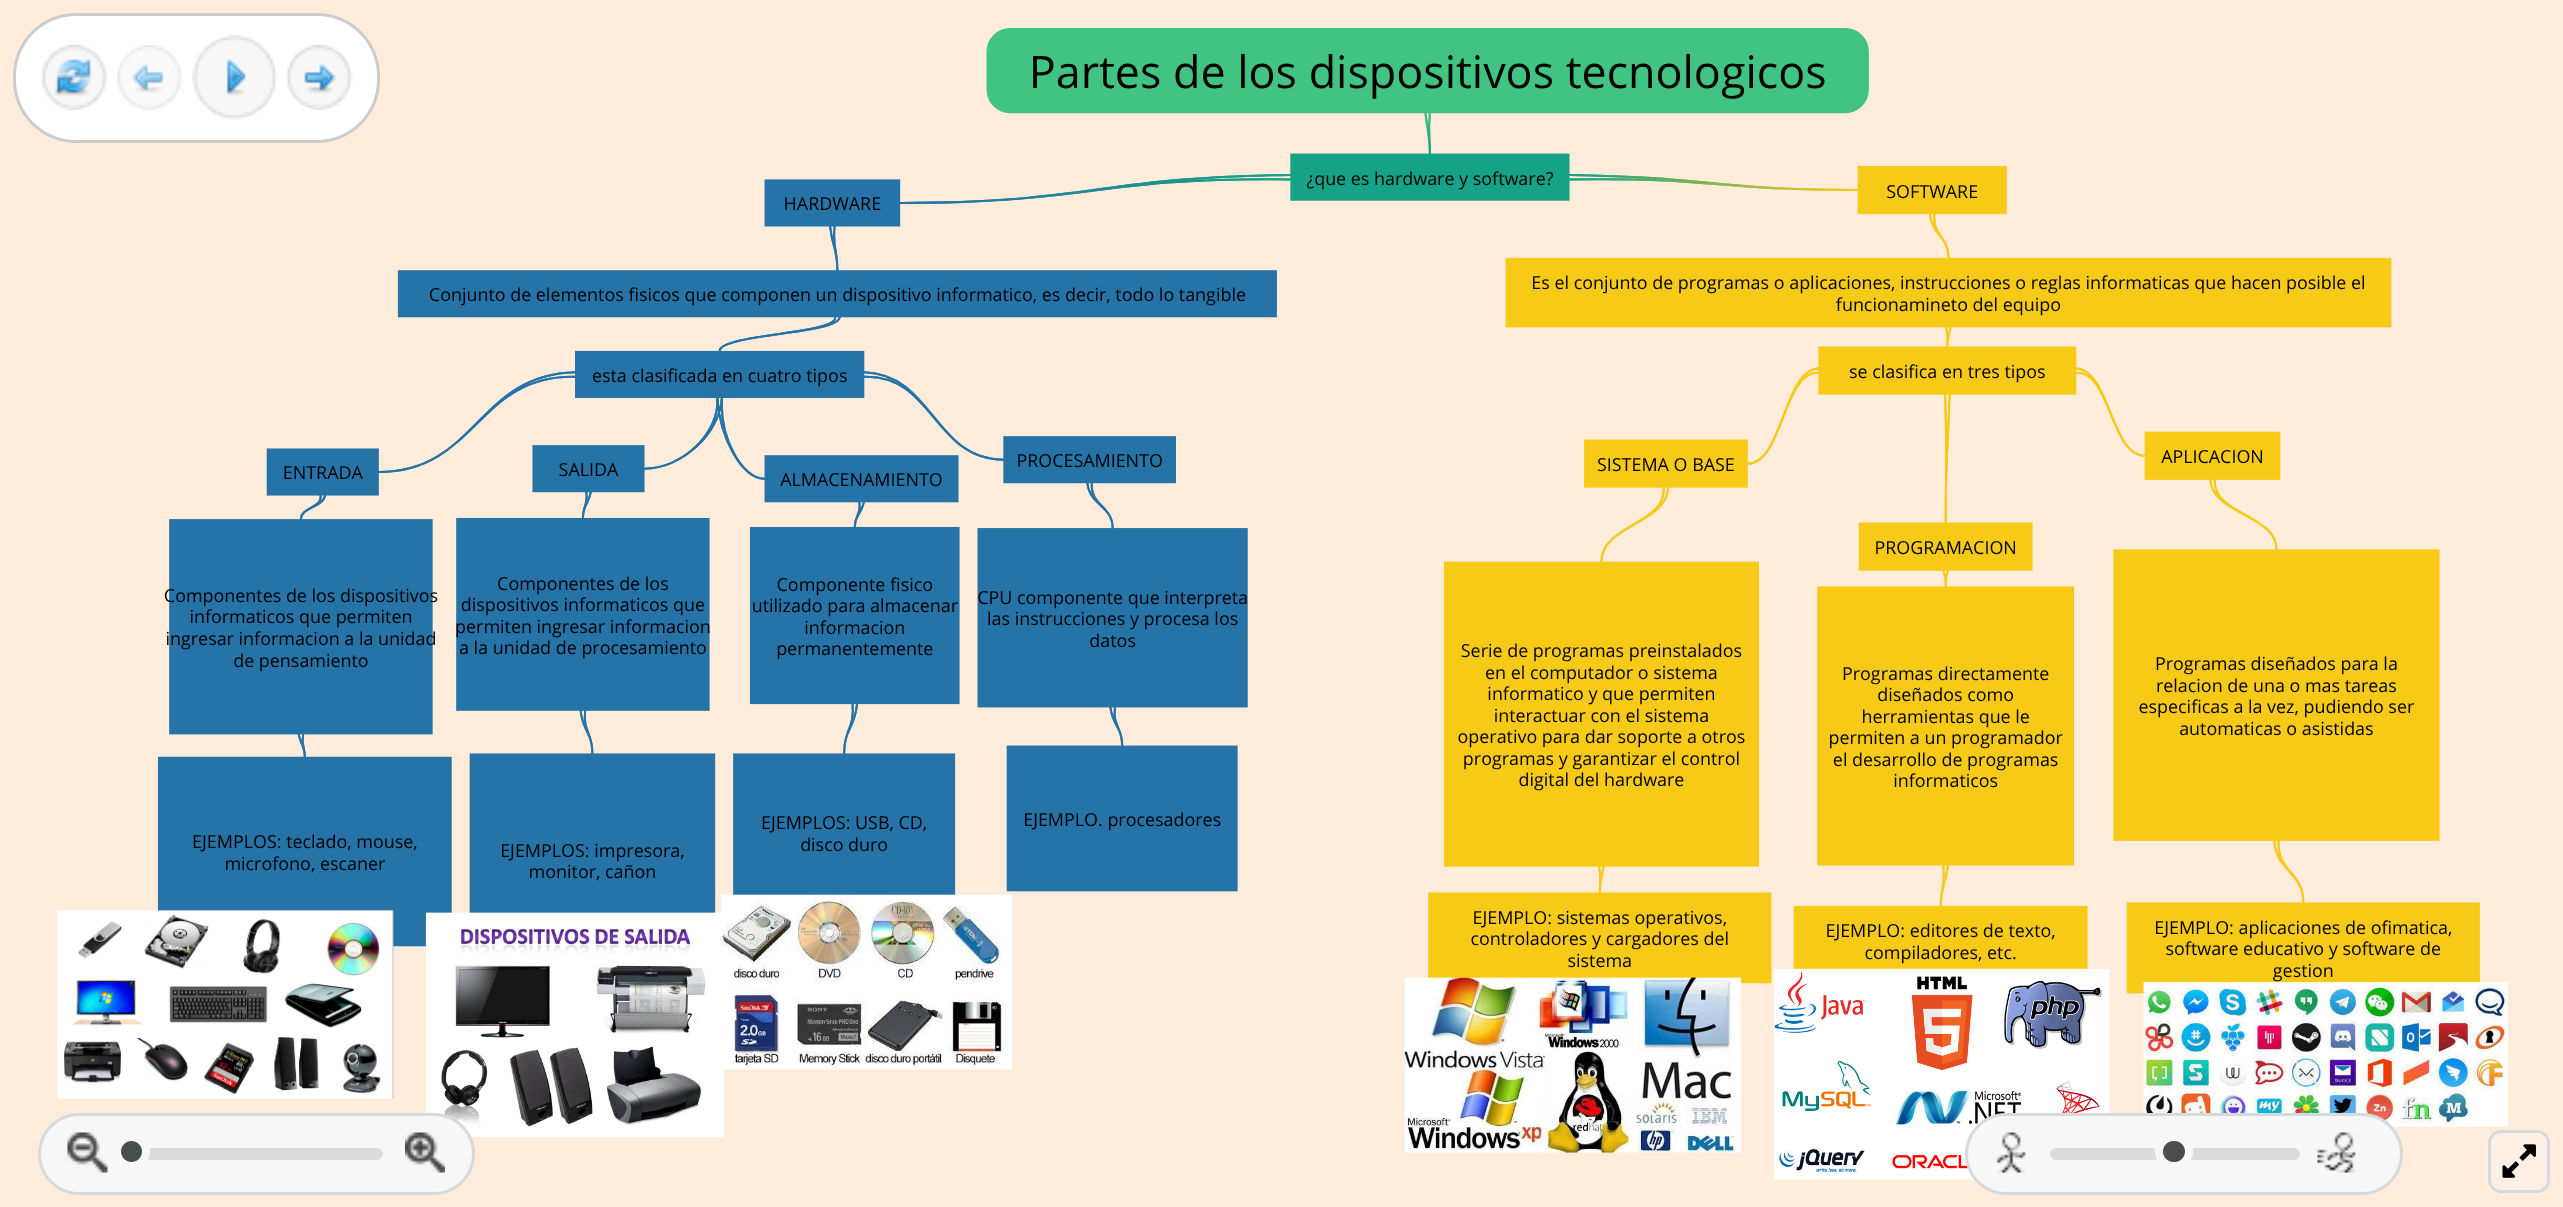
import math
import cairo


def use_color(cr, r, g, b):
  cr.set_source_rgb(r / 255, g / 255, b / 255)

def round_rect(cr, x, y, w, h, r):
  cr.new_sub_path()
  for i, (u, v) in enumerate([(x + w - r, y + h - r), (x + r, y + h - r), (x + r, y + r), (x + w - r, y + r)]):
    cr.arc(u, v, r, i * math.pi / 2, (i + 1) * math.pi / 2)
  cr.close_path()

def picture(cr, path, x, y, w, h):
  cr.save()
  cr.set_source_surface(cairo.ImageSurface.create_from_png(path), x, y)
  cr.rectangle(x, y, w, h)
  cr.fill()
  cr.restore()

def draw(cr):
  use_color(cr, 255, 255, 255)
  cr.paint()
  picture(cr, "img_01.png", 0, 0, 2563, 1207)
  use_color(cr, 255, 255, 255)
  round_rect(cr, 14.5, 14.5, 364, 127, 61.5)
  cr.fill_preserve()
  use_color(cr, 204, 204, 204)
  cr.set_line_width(3)
  cr.stroke()
  picture(cr, "img_02.png", 40, 45, 68, 65)
  picture(cr, "img_03.png", 117, 45, 66, 65)
  picture(cr, "img_04.png", 192, 35, 86, 85)
  picture(cr, "img_05.png", 285, 45, 68, 65)
  use_color(cr, 247, 247, 247)
  round_rect(cr, 39.5, 1114.5, 434, 79, 39.5)
  cr.fill_preserve()
  use_color(cr, 213, 218, 219)
  cr.stroke()
  picture(cr, "img_06.png", 67, 1132, 41, 41)
  use_color(cr, 220, 220, 220)
  round_rect(cr, 133, 1148, 250, 12, 6)
  cr.fill()
  use_color(cr, 70, 78, 79)
  cr.arc(131.5, 1151.5, 14.5, 0, 2 * math.pi)
  cr.fill_preserve()
  use_color(cr, 247, 247, 247)
  cr.set_line_width(8)
  cr.stroke()
  picture(cr, "img_07.png", 405, 1132, 40, 41)
  round_rect(cr, 1966.5, 1114.5, 435, 79, 39.5)
  cr.fill_preserve()
  use_color(cr, 213, 218, 219)
  cr.set_line_width(3)
  cr.stroke()
  picture(cr, "img_08.png", 1996, 1132, 30, 41)
  use_color(cr, 220, 220, 220)
  round_rect(cr, 2050, 1148, 250, 12, 6)
  cr.fill()
  use_color(cr, 70, 78, 79)
  round_rect(cr, 2159, 1137, 30, 29, 14.5)
  cr.fill_preserve()
  use_color(cr, 247, 247, 247)
  cr.set_line_width(8)
  cr.stroke()
  picture(cr, "img_09.png", 2317, 1132, 40, 41)
  use_color(cr, 252, 240, 230)
  round_rect(cr, 2489.5, 1131.5, 59, 60, 11.5)
  cr.fill_preserve()
  use_color(cr, 213, 218, 219)
  cr.set_line_width(3)
  cr.stroke()
  picture(cr, "img_10.png", 2502, 1144, 34, 34)


surface = cairo.ImageSurface(cairo.FORMAT_RGB24, 2563, 1207)
cr = cairo.Context(surface)
options = cairo.FontOptions()
options.set_hint_metrics(cairo.HINT_METRICS_OFF)
options.set_hint_style(cairo.HINT_STYLE_NONE)
cr.set_font_options(options)
cr.set_miter_limit(4)
draw(cr)
surface.write_to_png("out.png")
